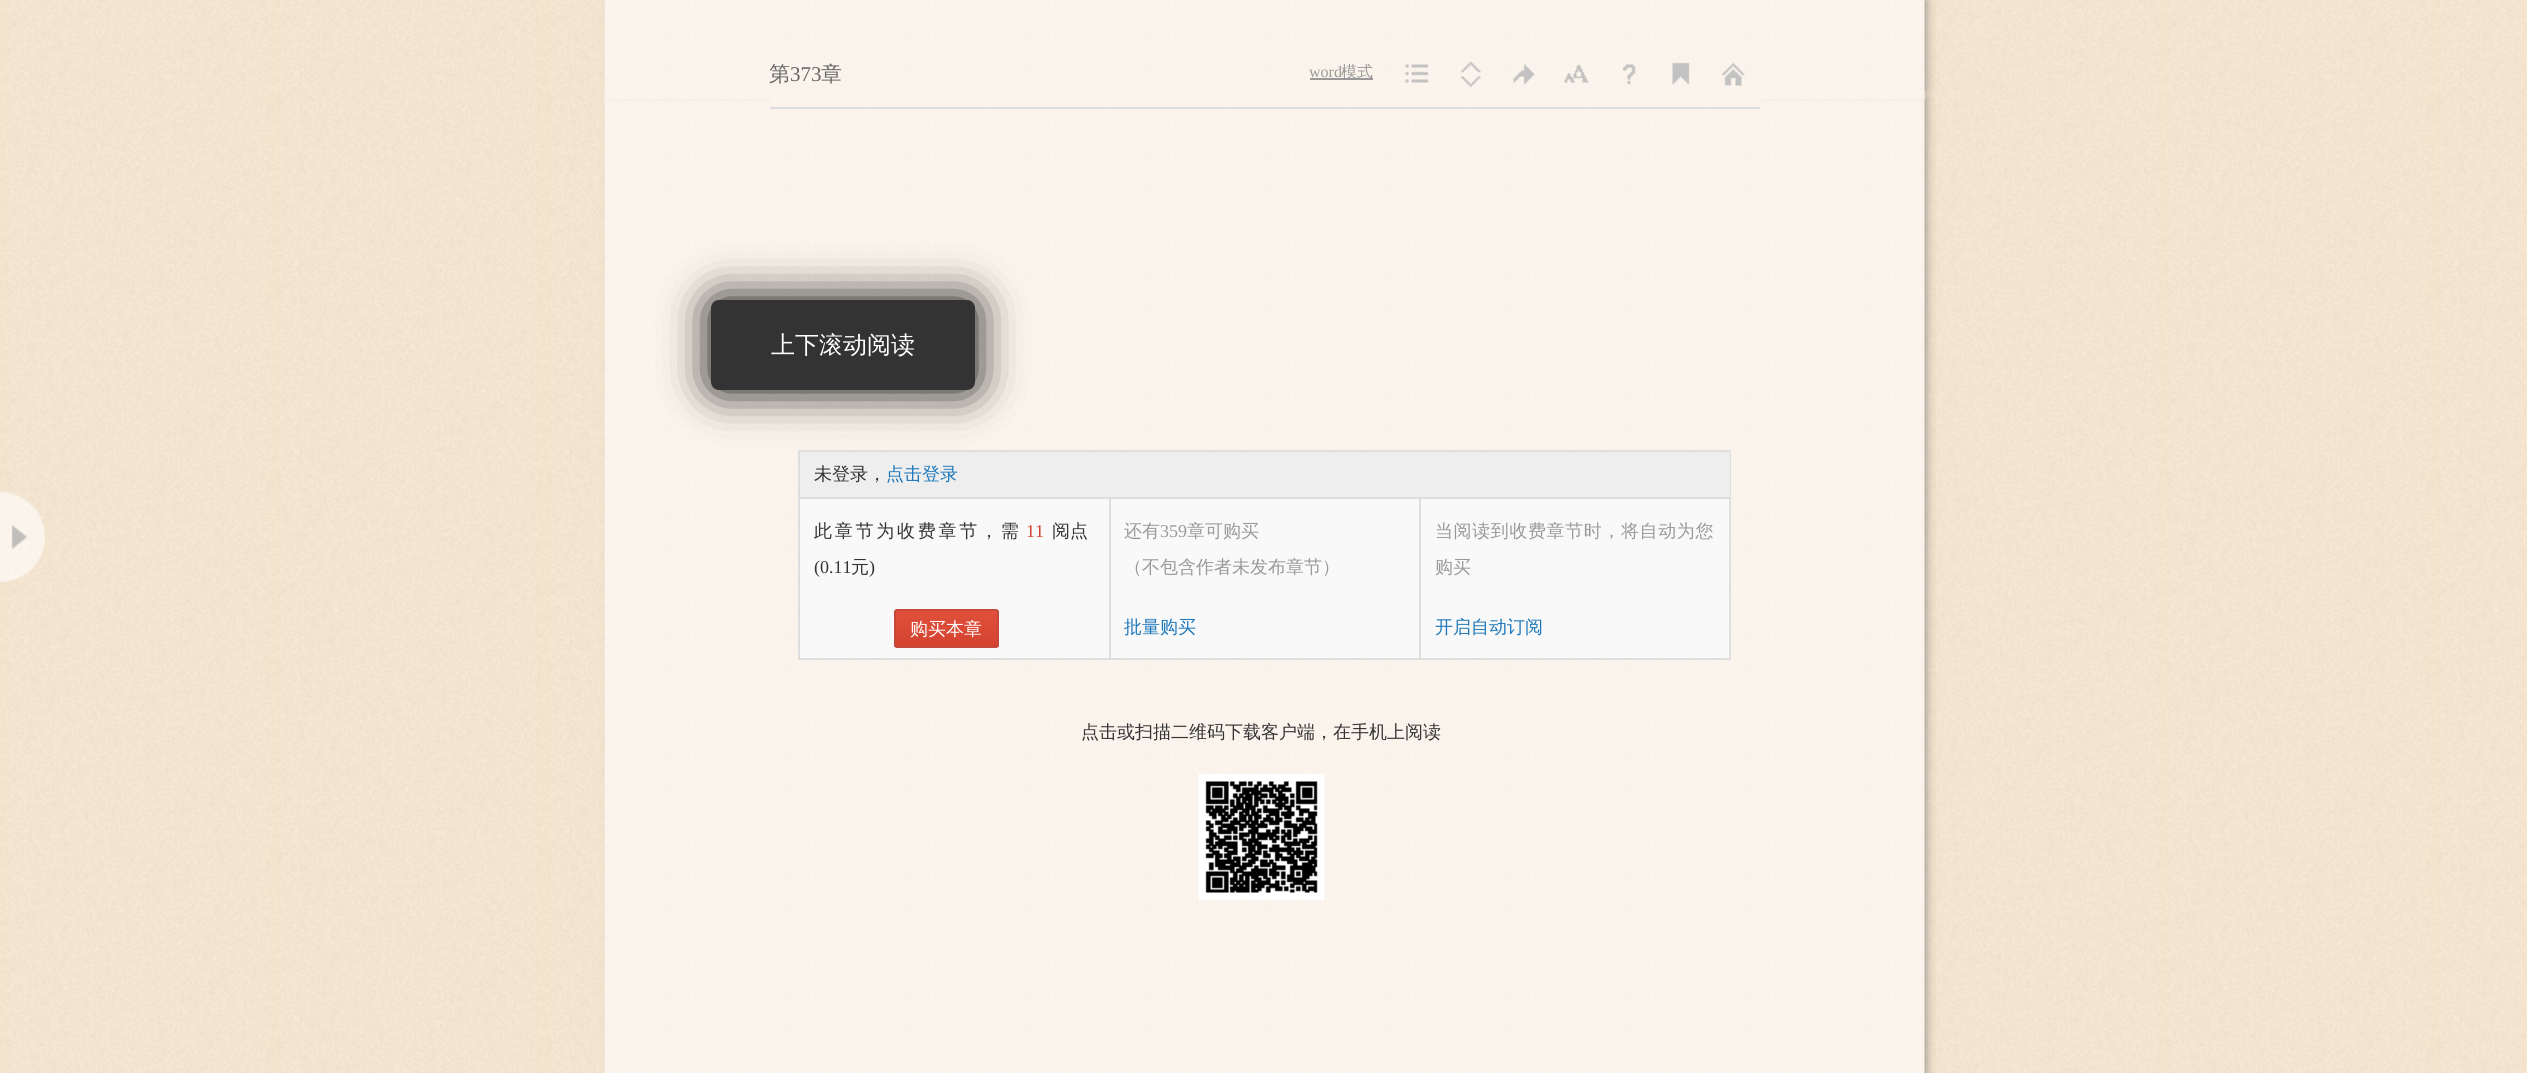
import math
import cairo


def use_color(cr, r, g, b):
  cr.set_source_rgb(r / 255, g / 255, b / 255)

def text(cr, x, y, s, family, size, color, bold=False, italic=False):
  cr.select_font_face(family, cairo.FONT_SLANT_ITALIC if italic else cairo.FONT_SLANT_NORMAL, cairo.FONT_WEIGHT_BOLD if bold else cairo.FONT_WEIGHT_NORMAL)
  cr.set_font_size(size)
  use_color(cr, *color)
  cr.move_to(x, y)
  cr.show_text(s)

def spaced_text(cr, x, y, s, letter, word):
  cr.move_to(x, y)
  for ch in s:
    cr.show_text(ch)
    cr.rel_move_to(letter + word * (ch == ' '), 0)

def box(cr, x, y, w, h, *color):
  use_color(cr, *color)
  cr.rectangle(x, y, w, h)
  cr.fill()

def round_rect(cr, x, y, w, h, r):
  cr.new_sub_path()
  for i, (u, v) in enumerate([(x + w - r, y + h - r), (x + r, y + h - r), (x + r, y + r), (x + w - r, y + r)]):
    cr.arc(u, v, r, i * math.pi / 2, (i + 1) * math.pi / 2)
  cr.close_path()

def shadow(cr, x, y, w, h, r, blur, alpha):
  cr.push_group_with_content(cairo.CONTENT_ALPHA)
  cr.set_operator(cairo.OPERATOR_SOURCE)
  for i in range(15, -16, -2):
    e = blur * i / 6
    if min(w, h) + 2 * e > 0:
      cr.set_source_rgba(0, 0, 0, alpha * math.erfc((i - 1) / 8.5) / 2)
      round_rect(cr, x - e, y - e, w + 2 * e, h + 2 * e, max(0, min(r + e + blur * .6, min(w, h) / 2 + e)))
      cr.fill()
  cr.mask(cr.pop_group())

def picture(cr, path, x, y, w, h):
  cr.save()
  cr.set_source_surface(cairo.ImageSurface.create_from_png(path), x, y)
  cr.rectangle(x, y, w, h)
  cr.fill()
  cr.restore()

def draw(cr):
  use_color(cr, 255, 255, 255)
  cr.paint()
  picture(cr, "img_01.png", 0, 0, 2527, 1073)
  use_color(cr, 131, 131, 131)
  shadow(cr, 614, 99, 1311, 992, 0, 6, 1)
  picture(cr, "img_12.png", 604, 90, 1321, 983)
  shadow(cr, 614, 0, 1311, 90, 0, 6, 1)
  picture(cr, "img_02.png", 770, 99, 989, 6)
  box(cr, 770, 107, 990, 2, 222, 222, 222)
  picture(cr, "img_11.png", 604, 0, 1321, 99)
  box(cr, 1310, 78, 63, 2, 153, 153, 153)
  picture(cr, "img_03.png", 1405, 64, 24, 19)
  picture(cr, "img_04.png", 1460, 61, 21, 27)
  picture(cr, "img_05.png", 1513, 64, 22, 21)
  picture(cr, "img_06.png", 1564, 64, 25, 19)
  picture(cr, "img_07.png", 1622, 64, 14, 21)
  picture(cr, "img_08.png", 1672, 62, 18, 23)
  picture(cr, "img_09.png", 1721, 62, 24, 24)
  picture(cr, "img_10.png", 0, 492, 45, 90)
  box(cr, 800, 499, 929, 159, 249, 249, 249)
  cr.rectangle(799, 451, 931, 208)
  use_color(cr, 222, 222, 222)
  cr.stroke()
  box(cr, 800, 452, 930, 45, 238, 238, 238)
  box(cr, 800, 497, 930, 2, 222, 222, 222)
  cr.save()
  round_rect(cr, 894, 609, 105, 39, 3)
  cr.clip()
  gradient = cairo.LinearGradient(947, 611, 947, 647)
  gradient.add_color_stop_rgba(0, 0.882, 0.314, 0.231, 1)
  gradient.add_color_stop_rgba(1, 0.827, 0.259, 0.184, 1)
  cr.set_source(gradient)
  cr.rectangle(894, 611, 105, 36)
  cr.fill()
  cr.restore()
  round_rect(cr, 895, 610, 103, 37, 2)
  use_color(cr, 198, 72, 58)
  cr.stroke()
  box(cr, 1109, 498, 2, 161, 222, 222, 222)
  box(cr, 1419, 498, 2, 161, 222, 222, 222)
  picture(cr, "img_13.png", 1198, 774, 127, 126)
  use_color(cr, 0, 0, 0)
  shadow(cr, 711, 300, 264, 90, 8, 22.5, 1)
  use_color(cr, 51, 51, 51)
  round_rect(cr, 711, 300, 264, 90, 8)
  cr.fill()
  text(cr, 769, 81, "第", "WenQuanYi Zen Hei Medium", 21, (102, 102, 102))
  text(cr, 790, 81, "373", "Liberation Serif", 21, (102, 102, 102))
  text(cr, 821, 81, "章", "WenQuanYi Zen Hei Medium", 21, (102, 102, 102))
  text(cr, 1309, 77, "word", "Liberation Serif", 16, (153, 153, 153))
  text(cr, 1341, 77, "模式", "WenQuanYi Zen Hei Medium", 16, (153, 153, 153))
  text(cr, 814, 480, "未登录，", "WenQuanYi Zen Hei Medium", 18, (51, 51, 51))
  text(cr, 886, 480, "点击登录", "WenQuanYi Zen Hei Medium", 18, (28, 119, 186))
  use_color(cr, 51, 51, 51)
  spaced_text(cr, 814, 537, "此章节为收费章节，需", 2.75, 0)
  text(cr, 1026, 537, "11", "Liberation Serif", 18, (210, 65, 46))
  text(cr, 1052, 537, "阅点", "WenQuanYi Zen Hei Medium", 18, (51, 51, 51))
  text(cr, 814, 573, "(0.11", "Liberation Serif", 18, (51, 51, 51))
  text(cr, 851, 573, "元", "WenQuanYi Zen Hei Medium", 18, (51, 51, 51))
  text(cr, 869, 573, ")", "Liberation Serif", 18, (51, 51, 51))
  text(cr, 910, 635, "购买本章", "WenQuanYi Zen Hei Medium", 18, (255, 255, 255))
  text(cr, 1124, 537, "还有", "WenQuanYi Zen Hei Medium", 18, (153, 153, 153))
  text(cr, 1160, 537, "359", "Liberation Serif", 18, (153, 153, 153))
  text(cr, 1187, 537, "章可购买", "WenQuanYi Zen Hei Medium", 18, (153, 153, 153))
  text(cr, 1124, 573, "（不包含作者未发布章节）", "WenQuanYi Zen Hei Medium", 18, (153, 153, 153))
  text(cr, 1124, 633, "批量购买", "WenQuanYi Zen Hei Medium", 18, (28, 119, 186))
  use_color(cr, 153, 153, 153)
  spaced_text(cr, 1435, 537, "当阅读到收费章节时，将自动为您", 0.6, 0)
  text(cr, 1435, 573, "购买", "WenQuanYi Zen Hei Medium", 18, (153, 153, 153))
  text(cr, 1435, 633, "开启自动订阅", "WenQuanYi Zen Hei Medium", 18, (28, 119, 186))
  text(cr, 1081, 738, "点击或扫描二维码下载客户端，在手机上阅读", "WenQuanYi Zen Hei Medium", 18, (51, 51, 51))
  text(cr, 771, 353, "上下滚动阅读", "WenQuanYi Zen Hei Medium", 24, (255, 255, 255))


surface = cairo.ImageSurface(cairo.FORMAT_RGB24, 2527, 1073)
cr = cairo.Context(surface)
options = cairo.FontOptions()
options.set_hint_metrics(cairo.HINT_METRICS_OFF)
options.set_hint_style(cairo.HINT_STYLE_NONE)
cr.set_font_options(options)
cr.set_miter_limit(4)
draw(cr)
surface.write_to_png("out.png")
